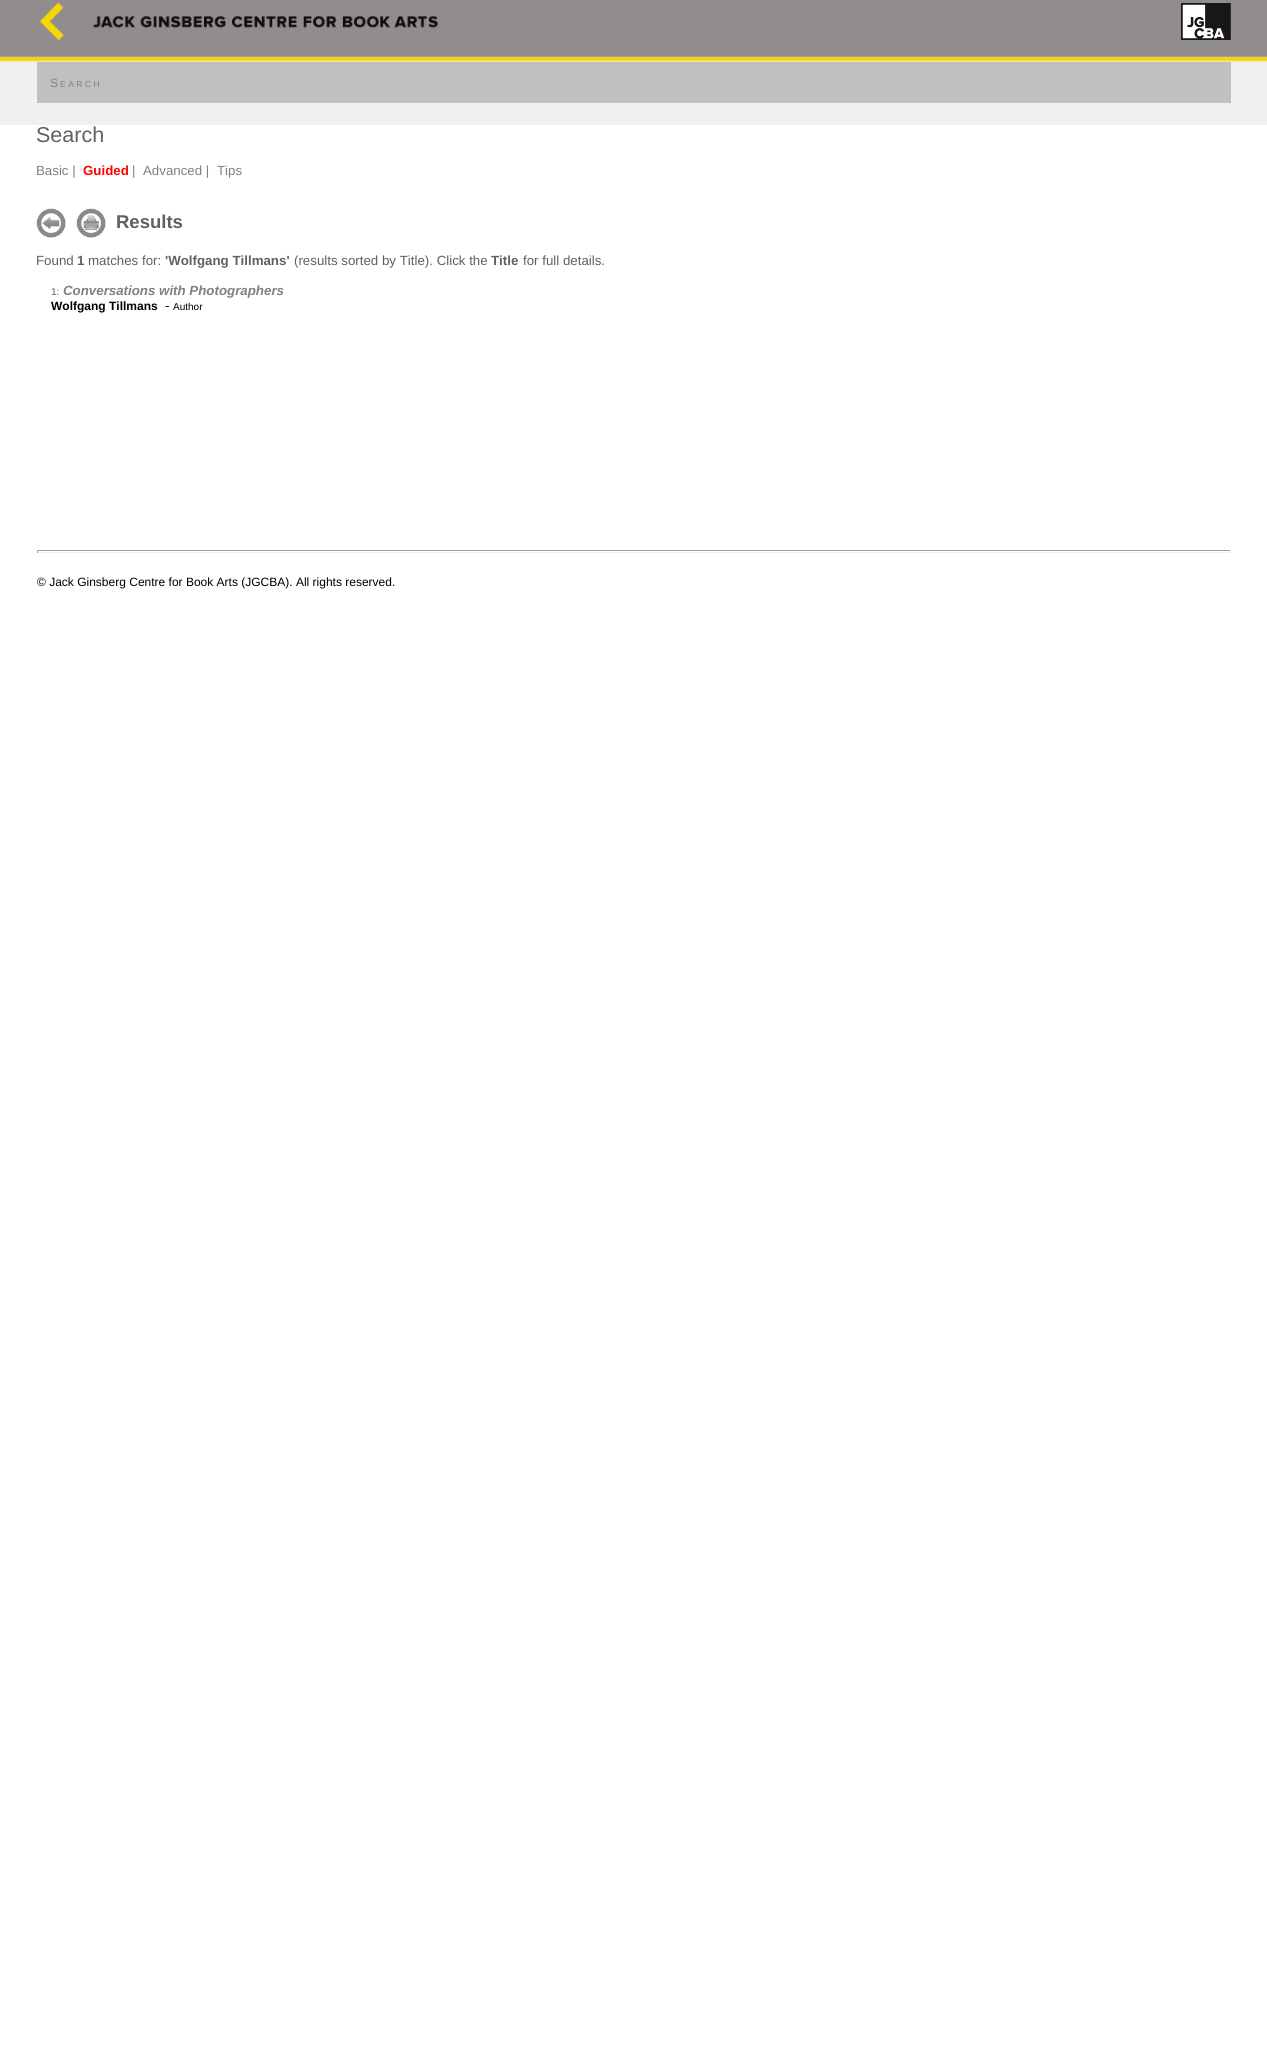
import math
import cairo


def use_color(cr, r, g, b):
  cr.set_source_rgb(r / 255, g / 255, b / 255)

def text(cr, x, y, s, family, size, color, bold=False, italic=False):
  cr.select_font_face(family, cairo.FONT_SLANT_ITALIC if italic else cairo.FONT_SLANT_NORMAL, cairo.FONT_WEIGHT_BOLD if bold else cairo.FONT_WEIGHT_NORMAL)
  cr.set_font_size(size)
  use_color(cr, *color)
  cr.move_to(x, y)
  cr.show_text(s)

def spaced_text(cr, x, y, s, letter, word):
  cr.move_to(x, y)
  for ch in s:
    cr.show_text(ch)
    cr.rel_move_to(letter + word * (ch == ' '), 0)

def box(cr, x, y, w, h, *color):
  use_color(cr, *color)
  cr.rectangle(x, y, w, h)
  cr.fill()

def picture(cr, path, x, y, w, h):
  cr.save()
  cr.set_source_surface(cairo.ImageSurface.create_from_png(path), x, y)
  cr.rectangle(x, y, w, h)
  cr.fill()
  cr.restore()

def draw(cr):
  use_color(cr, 255, 255, 255)
  cr.paint()
  picture(cr, "img_01.png", 0, 0, 1267, 125)
  picture(cr, "img_02.png", 39, 3, 25, 37)
  picture(cr, "img_03.png", 93, 15, 346, 13)
  picture(cr, "img_04.png", 1181, 3, 50, 37)
  box(cr, 37, 62, 1194, 41, 192, 192, 192)
  picture(cr, "img_05.png", 36, 208, 30, 30)
  picture(cr, "img_06.png", 76, 208, 30, 30)
  box(cr, 37, 550, 1194, 1, 159, 159, 159)
  box(cr, 1230, 550, 1, 3, 238, 238, 238)
  box(cr, 37, 552, 1194, 1, 238, 238, 238)
  box(cr, 37, 550, 1, 3, 159, 159, 159)
  cr.select_font_face("Liberation Sans")
  cr.set_font_size(12)
  use_color(cr, 128, 128, 128)
  spaced_text(cr, 50, 87, "S", 2.5, 0)
  cr.set_font_size(8.5)
  spaced_text(cr, 60, 87, "EARCH", 2.5, 0)
  text(cr, 36, 142, "Search", "Liberation Sans", 21.5, (96, 96, 96))
  text(cr, 36, 175, "Basic |", "Liberation Sans", 13.3, (128, 128, 128))
  text(cr, 83, 175, "Guided", "Liberation Sans", 13.3, (255, 0, 0), bold=True)
  text(cr, 132, 175, "|", "Liberation Sans", 13.3, (128, 128, 128))
  text(cr, 143, 175, "Advanced |", "Liberation Sans", 13.3, (128, 128, 128))
  text(cr, 217, 175, "Tips", "Liberation Sans", 13.3, (128, 128, 128))
  text(cr, 116, 228, "Results", "Liberation Sans", 18.5, (96, 96, 96), bold=True)
  text(cr, 36, 265, "Found", "Liberation Sans", 13.3, (96, 96, 96))
  text(cr, 77, 265, "1", "Liberation Sans", 13.3, (96, 96, 96), bold=True)
  text(cr, 88, 265, "matches for:", "Liberation Sans", 13.3, (96, 96, 96))
  text(cr, 165, 265, "'Wolfgang Tillmans'", "Liberation Sans", 13.3, (96, 96, 96), bold=True)
  text(cr, 294, 265, "(results sorted by Title). Click the", "Liberation Sans", 13.3, (96, 96, 96))
  text(cr, 491, 265, "Title", "Liberation Sans", 13.3, (96, 96, 96), bold=True)
  text(cr, 523, 265, "for full details.", "Liberation Sans", 13.3, (96, 96, 96))
  text(cr, 51, 295, "1:", "Liberation Sans", 10, (96, 96, 96))
  text(cr, 63, 295, "Conversations with Photographers", "Liberation Sans", 13.3, (128, 128, 128), bold=True, italic=True)
  text(cr, 51, 310, "Wolfgang Tillmans", "Liberation Sans", 12, (0, 0, 0), bold=True)
  text(cr, 165, 310, "-", "Liberation Sans", 13.3, (0, 0, 0))
  text(cr, 173, 310, "Author", "Liberation Sans", 10, (0, 0, 0))
  text(cr, 37, 586, "© Jack Ginsberg Centre for Book Arts (JGCBA). All rights reserved.", "Liberation Sans", 12, (0, 0, 0))


surface = cairo.ImageSurface(cairo.FORMAT_RGB24, 1267, 2045)
cr = cairo.Context(surface)
options = cairo.FontOptions()
options.set_hint_metrics(cairo.HINT_METRICS_OFF)
options.set_hint_style(cairo.HINT_STYLE_NONE)
cr.set_font_options(options)
cr.set_miter_limit(4)
draw(cr)
surface.write_to_png("out.png")
